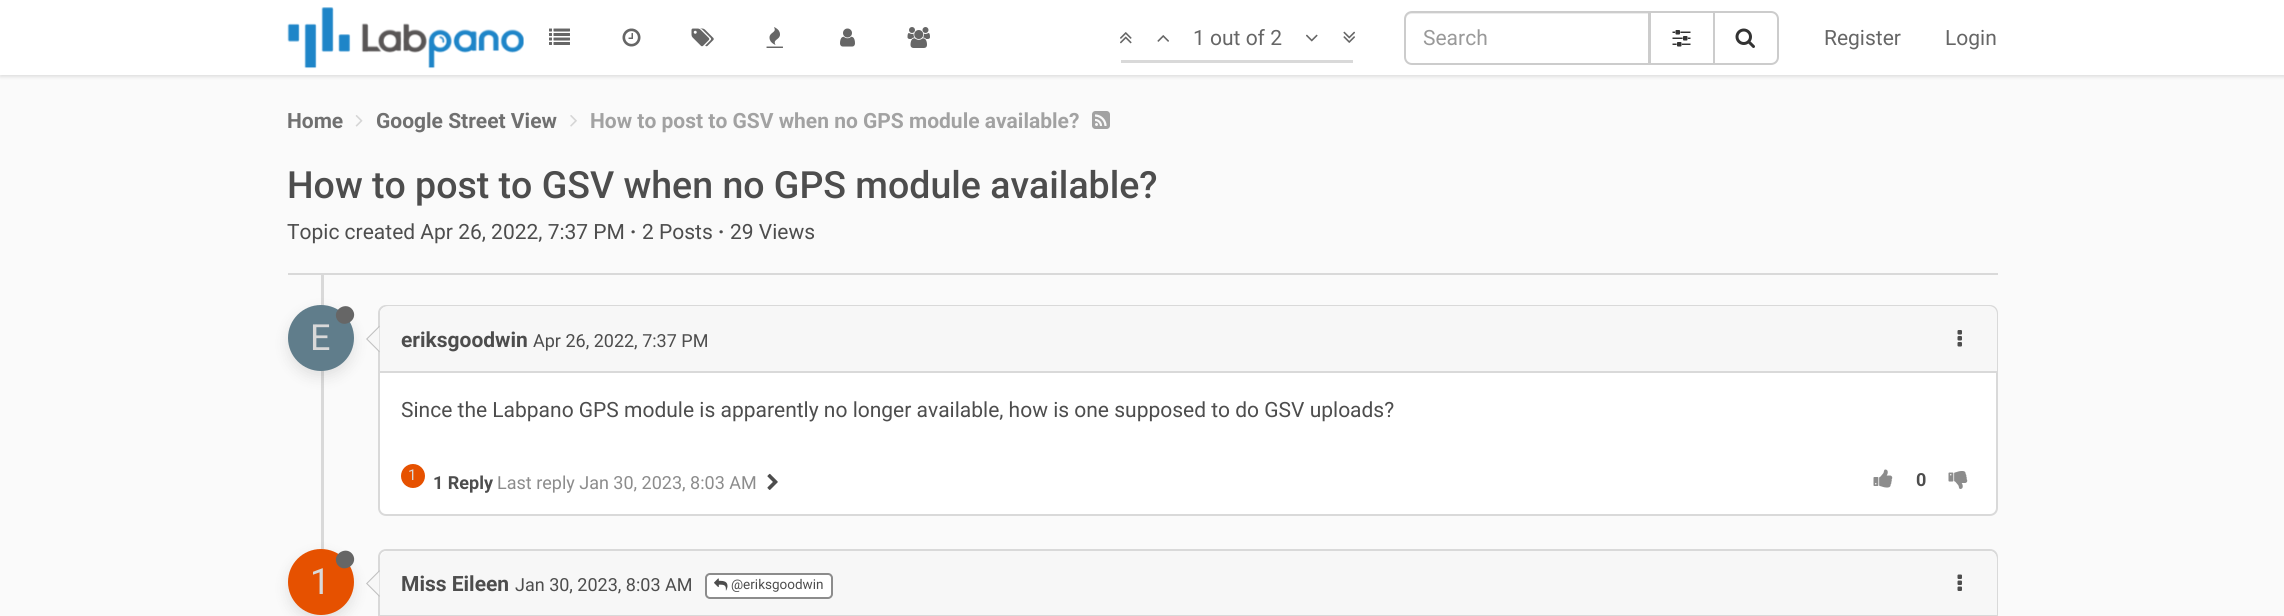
import math
import cairo


def use_color(cr, r, g, b):
  cr.set_source_rgb(r / 255, g / 255, b / 255)

def text(cr, x, y, s, family, size, color, bold=False, italic=False):
  cr.select_font_face(family, cairo.FONT_SLANT_ITALIC if italic else cairo.FONT_SLANT_NORMAL, cairo.FONT_WEIGHT_BOLD if bold else cairo.FONT_WEIGHT_NORMAL)
  cr.set_font_size(size)
  use_color(cr, *color)
  cr.move_to(x, y)
  cr.show_text(s)

def box(cr, x, y, w, h, *color):
  use_color(cr, *color)
  cr.rectangle(x, y, w, h)
  cr.fill()

def round_rect(cr, x, y, w, h, r):
  cr.new_sub_path()
  for i, (u, v) in enumerate([(x + w - r, y + h - r), (x + r, y + h - r), (x + r, y + r), (x + w - r, y + r)]):
    cr.arc(u, v, r, i * math.pi / 2, (i + 1) * math.pi / 2)
  cr.close_path()

def shadow(cr, x, y, w, h, r, blur, alpha):
  cr.push_group_with_content(cairo.CONTENT_ALPHA)
  cr.set_operator(cairo.OPERATOR_SOURCE)
  for i in range(15, -16, -2):
    e = blur * i / 6
    if min(w, h) + 2 * e > 0:
      cr.set_source_rgba(0, 0, 0, alpha * math.erfc((i - 1) / 8.5) / 2)
      round_rect(cr, x - e, y - e, w + 2 * e, h + 2 * e, max(0, min(r + e + blur * .6, min(w, h) / 2 + e)))
      cr.fill()
  cr.mask(cr.pop_group())

def picture(cr, path, x, y, w, h):
  cr.save()
  cr.set_source_surface(cairo.ImageSurface.create_from_png(path), x, y)
  cr.rectangle(x, y, w, h)
  cr.fill()
  cr.restore()

def draw(cr):
  use_color(cr, 250, 250, 250)
  cr.paint()
  use_color(cr, 0, 0, 0)
  shadow(cr, 0, 2, 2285, 75, 0, 1.5, 0.1)
  box(cr, 0, 0, 2284, 75, 255, 255, 255)
  picture(cr, "img_01.png", 287, 7, 237, 62)
  picture(cr, "img_02.png", 549, 28, 21, 17)
  picture(cr, "img_03.png", 622, 28, 19, 19)
  picture(cr, "img_04.png", 691, 28, 23, 19)
  picture(cr, "img_05.png", 766, 27, 17, 21)
  picture(cr, "img_06.png", 840, 28, 15, 19)
  picture(cr, "img_07.png", 907, 27, 23, 21)
  picture(cr, "img_08.png", 1120, 32, 12, 12)
  picture(cr, "img_09.png", 1157, 35, 12, 7)
  picture(cr, "img_10.png", 1306, 34, 12, 8)
  picture(cr, "img_11.png", 1343, 31, 12, 12)
  box(cr, 1121, 60, 232, 3, 217, 217, 217)
  cr.rectangle(1650, 12, 64, 52)
  use_color(cr, 204, 204, 204)
  cr.stroke()
  use_color(cr, 255, 255, 255)
  cr.new_path()
  cr.move_to(1412, 11)
  cr.line_to(1650, 11)
  cr.line_to(1650, 65)
  cr.line_to(1412, 65)
  cr.curve_to(1407.5, 65, 1404, 61.5, 1404, 57)
  cr.line_to(1404, 19)
  cr.curve_to(1404, 14.5, 1407.5, 11, 1412, 11)
  cr.close_path()
  cr.fill()
  use_color(cr, 236, 236, 236)
  cr.new_path()
  cr.move_to(1412, 14)
  cr.line_to(1648, 14)
  cr.line_to(1648, 63)
  cr.line_to(1649, 63)
  cr.line_to(1649, 12)
  cr.line_to(1412, 12)
  cr.curve_to(1409, 12, 1406, 15, 1406, 18)
  cr.line_to(1406, 20)
  cr.curve_to(1406, 16, 1408, 14, 1412, 14)
  cr.close_path()
  cr.fill()
  cr.new_path()
  cr.move_to(1412, 12)
  cr.line_to(1649, 12)
  cr.line_to(1649, 64)
  cr.line_to(1412, 64)
  cr.curve_to(1408, 64, 1405, 61, 1405, 57)
  cr.line_to(1405, 19)
  cr.curve_to(1405, 15, 1408, 12, 1412, 12)
  cr.close_path()
  use_color(cr, 204, 204, 204)
  cr.stroke()
  picture(cr, "img_12.png", 1672, 30, 19, 17)
  use_color(cr, 255, 255, 255)
  cr.new_path()
  cr.move_to(1714, 12)
  cr.line_to(1771, 12)
  cr.curve_to(1775, 12, 1778, 15, 1778, 19)
  cr.line_to(1778, 57)
  cr.curve_to(1778, 61, 1775, 64, 1771, 64)
  cr.line_to(1714, 64)
  cr.close_path()
  cr.fill_preserve()
  use_color(cr, 204, 204, 204)
  cr.stroke()
  picture(cr, "img_13.png", 1735, 28, 20, 20)
  picture(cr, "img_14.png", 355, 115, 8, 12)
  picture(cr, "img_15.png", 570, 115, 7, 12)
  picture(cr, "img_16.png", 1092, 111, 18, 18)
  box(cr, 288, 273, 1710, 2, 217, 217, 217)
  box(cr, 321, 275, 3, 274, 217, 217, 217)
  use_color(cr, 0, 0, 0)
  shadow(cr, 288, 311, 66, 66, 33, 7, 0.1)
  use_color(cr, 96, 125, 139)
  cr.arc(321, 338, 33, 0, 2 * math.pi)
  cr.fill()
  use_color(cr, 102, 102, 102)
  cr.new_path()
  cr.move_to(353, 310.5)
  cr.curve_to(358.5, 320.5, 343, 329.5, 337, 319.5)
  cr.curve_to(331.5, 309.5, 347, 300.5, 353, 310.5)
  cr.close_path()
  cr.fill()
  use_color(cr, 255, 255, 255)
  round_rect(cr, 379, 306, 1618, 209, 7)
  cr.fill_preserve()
  use_color(cr, 217, 217, 217)
  cr.stroke()
  use_color(cr, 191, 191, 191)
  cr.new_path()
  cr.move_to(379.5, 325.5)
  cr.line_to(379.5, 352.5)
  cr.line_to(366, 339)
  cr.close_path()
  cr.fill()
  use_color(cr, 247, 247, 247)
  cr.new_path()
  cr.move_to(379.5, 327)
  cr.line_to(379.5, 351)
  cr.line_to(367.5, 339)
  cr.close_path()
  cr.fill()
  cr.new_path()
  cr.move_to(388, 306)
  cr.line_to(1989, 306)
  cr.curve_to(1993.5, 306, 1997, 309.5, 1997, 314)
  cr.line_to(1997, 372)
  cr.line_to(380, 372)
  cr.line_to(380, 314)
  cr.curve_to(380, 309.5, 383.5, 306, 388, 306)
  cr.close_path()
  cr.fill()
  box(cr, 380, 371, 1617, 2, 217, 217, 217)
  picture(cr, "img_17.png", 1957, 330, 5, 17)
  use_color(cr, 230, 81, 0)
  cr.arc(413, 476, 12, 0, 2 * math.pi)
  cr.fill()
  picture(cr, "img_18.png", 767, 473, 11, 17)
  picture(cr, "img_19.png", 1873, 469, 20, 19)
  picture(cr, "img_20.png", 1948, 471, 20, 18)
  use_color(cr, 0, 0, 0)
  shadow(cr, 288, 555, 66, 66, 33, 7, 0.1)
  use_color(cr, 230, 81, 0)
  cr.arc(321, 582, 33, 0, 2 * math.pi)
  cr.fill()
  use_color(cr, 102, 102, 102)
  cr.new_path()
  cr.move_to(353, 555)
  cr.curve_to(358.5, 565, 343, 574, 337, 564)
  cr.curve_to(331.5, 554, 347, 545, 353, 555)
  cr.close_path()
  cr.fill()
  use_color(cr, 255, 255, 255)
  round_rect(cr, 379, 550, 1618, 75, 7)
  cr.fill_preserve()
  use_color(cr, 217, 217, 217)
  cr.stroke()
  use_color(cr, 191, 191, 191)
  cr.new_path()
  cr.move_to(379.5, 570)
  cr.line_to(379.5, 597)
  cr.line_to(366, 583.5)
  cr.close_path()
  cr.fill()
  use_color(cr, 247, 247, 247)
  cr.new_path()
  cr.move_to(379.5, 571.5)
  cr.line_to(379.5, 595.5)
  cr.line_to(367.5, 583.5)
  cr.close_path()
  cr.fill()
  cr.new_path()
  cr.move_to(388, 551)
  cr.line_to(1989, 551)
  cr.curve_to(1993.5, 551, 1997, 554.5, 1997, 559)
  cr.line_to(1997, 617)
  cr.line_to(380, 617)
  cr.line_to(380, 559)
  cr.curve_to(380, 554.5, 383.5, 551, 388, 551)
  cr.close_path()
  cr.fill()
  box(cr, 380, 615, 1617, 1, 217, 217, 217)
  use_color(cr, 255, 255, 255)
  round_rect(cr, 706, 574, 126, 24, 4)
  cr.fill_preserve()
  use_color(cr, 140, 140, 140)
  cr.stroke()
  picture(cr, "img_21.png", 714, 578, 14, 13)
  picture(cr, "img_22.png", 1957, 574, 5, 17)
  text(cr, 1193, 45, "1 out of 2", "Roboto", 21, (102, 102, 102))
  text(cr, 1423, 45, "Search", "Roboto", 21, (153, 153, 153))
  text(cr, 1824, 45, "Register", "Roboto", 21, (102, 102, 102))
  text(cr, 1945, 45, "Login", "Roboto", 21, (102, 102, 102))
  text(cr, 287, 128, "Home", "Roboto", 21, (112, 112, 112), bold=True)
  text(cr, 376, 128, "Google Street View", "Roboto", 21, (112, 112, 112), bold=True)
  text(cr, 590, 128, "How to post to GSV when no GPS module available?", "Roboto", 21, (162, 162, 162), bold=True)
  text(cr, 287, 198, "How to post to GSV when no GPS module available?", "Roboto Medium", 37.5, (77, 77, 77))
  text(cr, 287, 239, "Topic created Apr 26, 2022, 7:37 PM", "Roboto", 21, (77, 77, 77))
  text(cr, 630, 239, "·", "Roboto", 21, (77, 77, 77), bold=True)
  text(cr, 642, 239, "2 Posts", "Roboto", 21, (77, 77, 77))
  text(cr, 718, 239, "·", "Roboto", 21, (77, 77, 77), bold=True)
  text(cr, 730, 239, "29 Views", "Roboto", 21, (77, 77, 77))
  text(cr, 310, 350, "E", "Roboto", 36, (217, 217, 217))
  text(cr, 401, 347, "eriksgoodwin", "Roboto", 21, (77, 77, 77), bold=True)
  text(cr, 533, 347, "Apr 26, 2022, 7:37 PM", "Roboto", 18, (77, 77, 77))
  text(cr, 401, 417, "Since the Labpano GPS module is apparently no longer available, how is one supposed to do GSV uploads?", "Roboto", 21, (77, 77, 77))
  text(cr, 408, 480, "1", "Roboto", 15, (217, 217, 217))
  text(cr, 433, 489, "1 Reply", "Roboto", 18, (77, 77, 77), bold=True)
  text(cr, 497, 489, "Last reply Jan 30, 2023, 8:03 AM", "Roboto", 18, (140, 140, 140))
  text(cr, 1916, 486, "0", "Roboto", 18, (77, 77, 77), bold=True)
  text(cr, 310, 594, "1", "Roboto", 36, (217, 217, 217))
  text(cr, 401, 591, "Miss Eileen", "Roboto", 21, (77, 77, 77), bold=True)
  text(cr, 515, 591, "Jan 30, 2023, 8:03 AM", "Roboto", 18, (77, 77, 77))
  text(cr, 731, 589, "@eriksgoodwin", "Roboto", 13.5, (77, 77, 77))


surface = cairo.ImageSurface(cairo.FORMAT_RGB24, 2284, 616)
cr = cairo.Context(surface)
options = cairo.FontOptions()
options.set_hint_metrics(cairo.HINT_METRICS_OFF)
options.set_hint_style(cairo.HINT_STYLE_NONE)
cr.set_font_options(options)
cr.set_miter_limit(4)
draw(cr)
surface.write_to_png("out.png")
